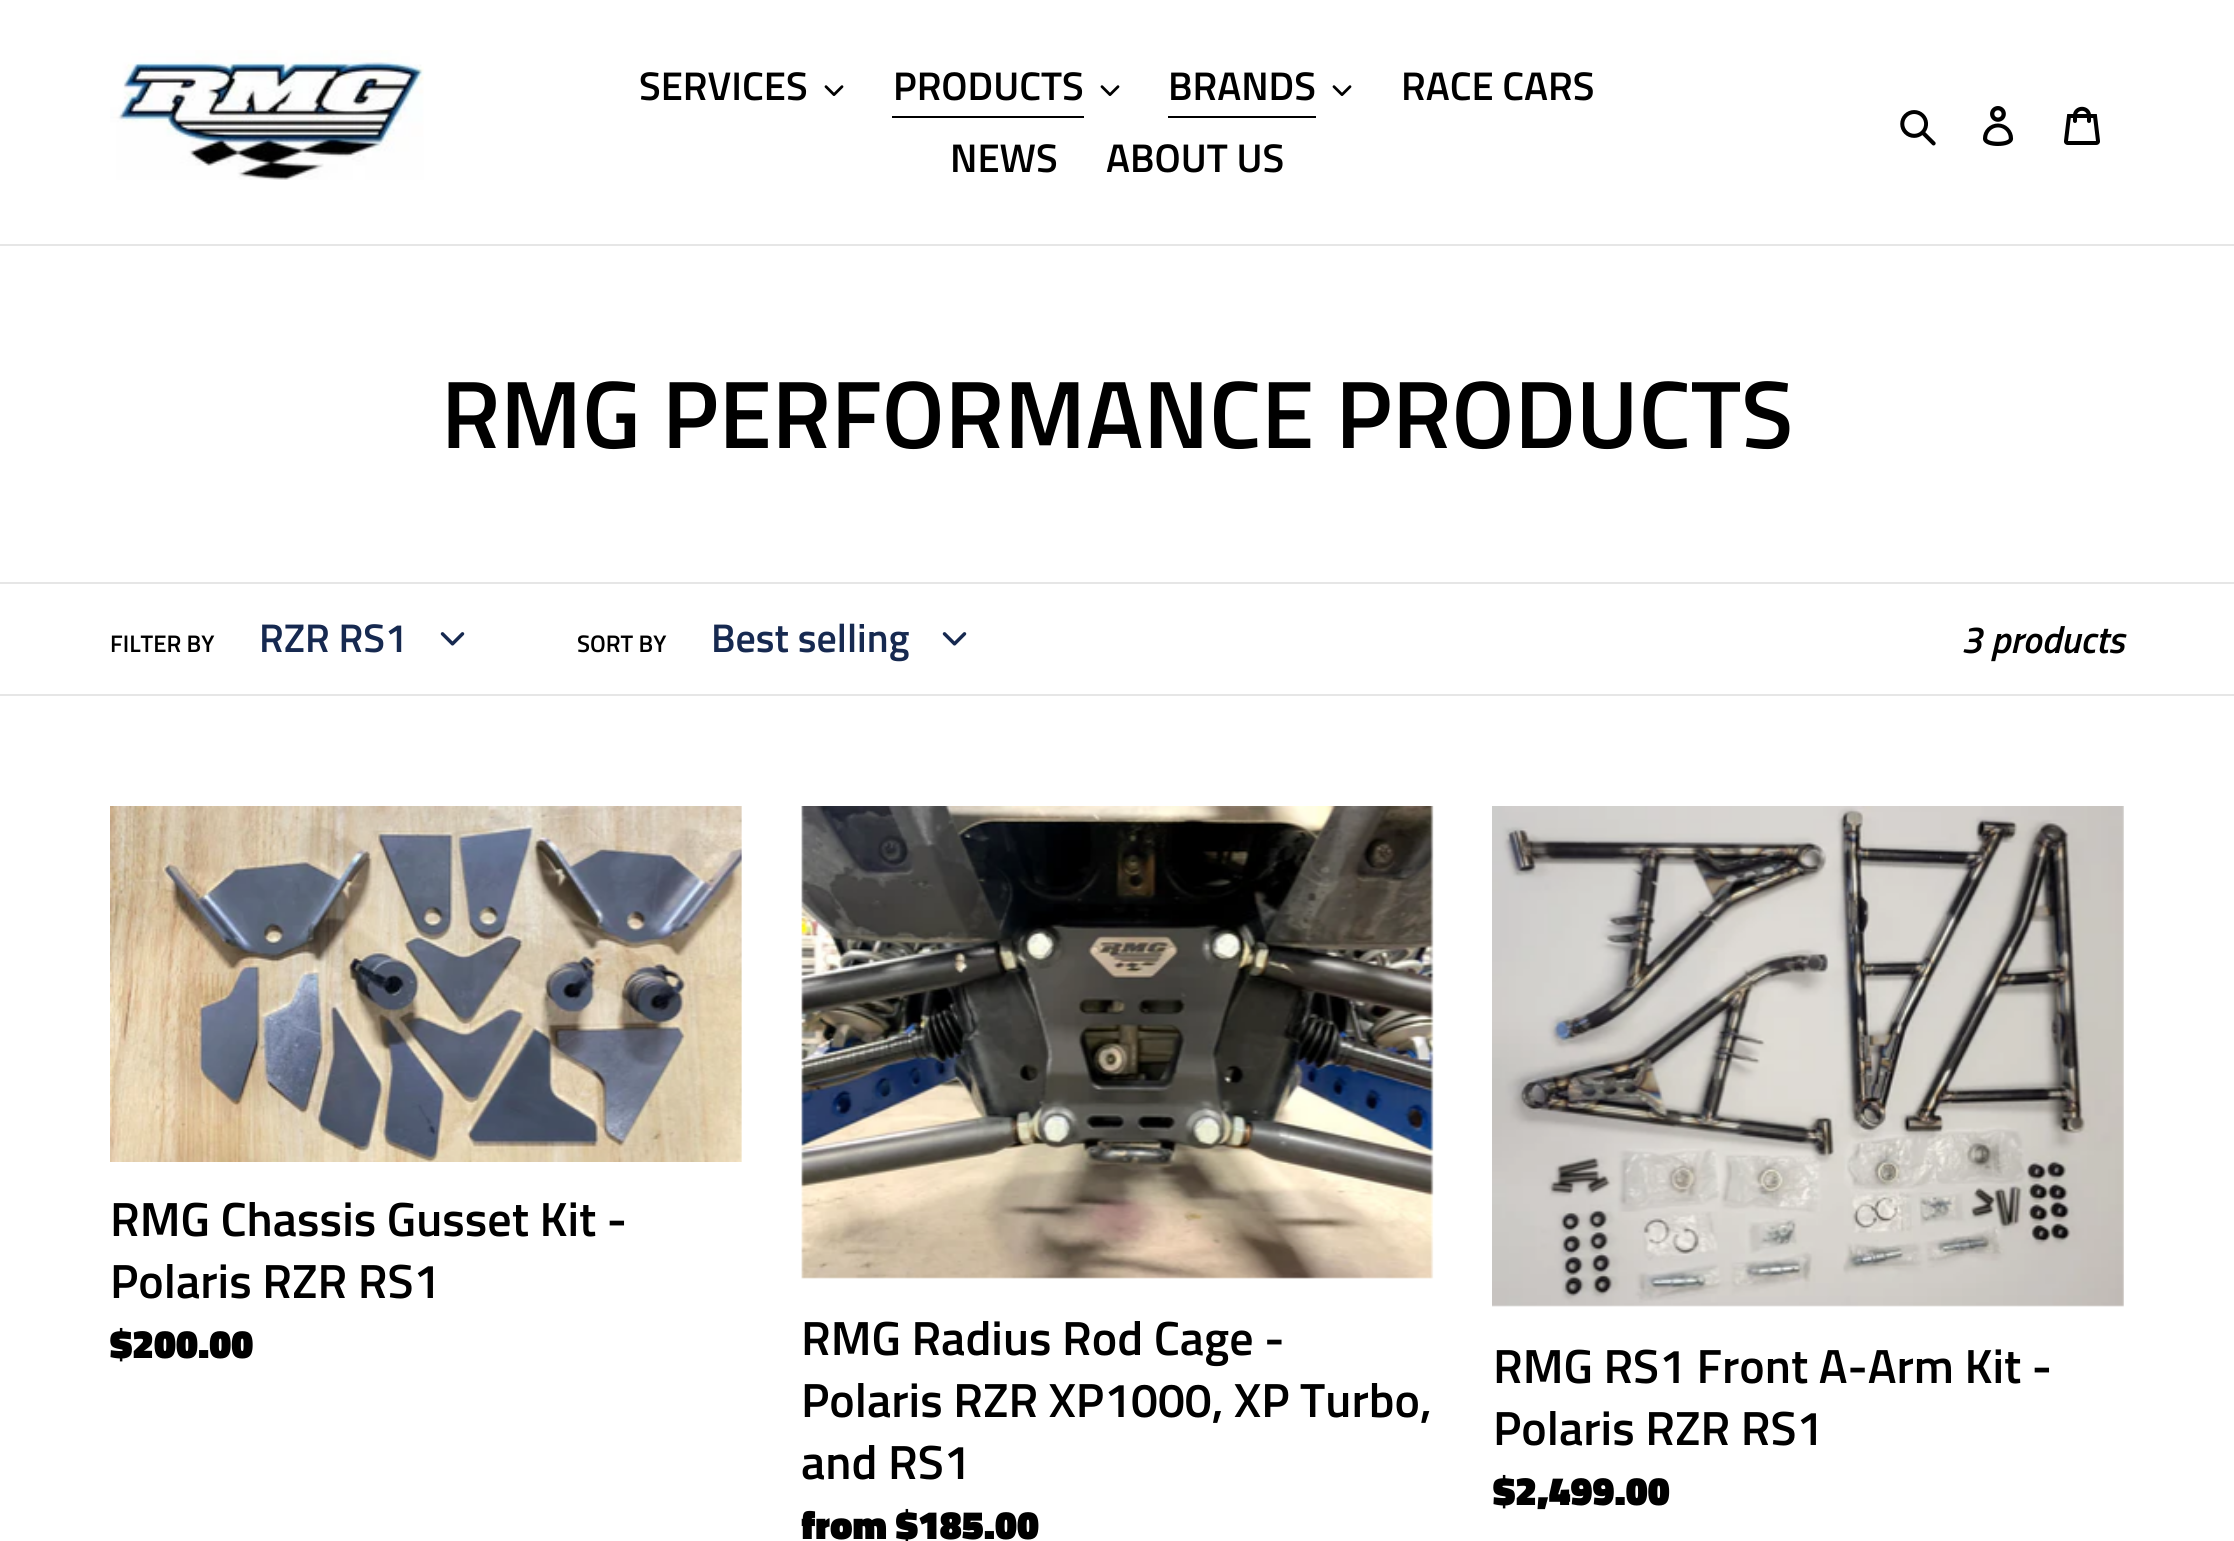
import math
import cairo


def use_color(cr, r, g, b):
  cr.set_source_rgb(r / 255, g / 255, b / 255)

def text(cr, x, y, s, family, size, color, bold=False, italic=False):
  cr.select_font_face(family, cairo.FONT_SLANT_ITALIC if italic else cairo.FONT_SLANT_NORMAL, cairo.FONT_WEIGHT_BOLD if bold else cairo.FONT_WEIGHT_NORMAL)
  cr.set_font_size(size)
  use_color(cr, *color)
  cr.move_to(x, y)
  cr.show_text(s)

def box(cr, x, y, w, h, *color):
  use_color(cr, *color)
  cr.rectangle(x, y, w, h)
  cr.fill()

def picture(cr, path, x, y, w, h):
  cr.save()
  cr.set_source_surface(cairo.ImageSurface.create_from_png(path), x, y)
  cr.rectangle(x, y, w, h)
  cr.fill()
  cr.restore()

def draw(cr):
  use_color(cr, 255, 255, 255)
  cr.paint()
  box(cr, 0, 244, 2234, 2, 230, 230, 230)
  picture(cr, "img_01.png", 110, 50, 314, 130)
  picture(cr, "img_02.png", 824, 85, 20, 11)
  box(cr, 892, 116, 192, 2, 0, 0, 0)
  picture(cr, "img_02.png", 1100, 85, 20, 11)
  box(cr, 1168, 116, 148, 2, 0, 0, 0)
  picture(cr, "img_02.png", 1332, 85, 20, 11)
  picture(cr, "img_03.png", 1900, 110, 36, 36)
  picture(cr, "img_04.png", 1983, 106, 31, 40)
  picture(cr, "img_05.png", 2064, 106, 36, 39)
  box(cr, 0, 582, 2234, 2, 230, 230, 230)
  box(cr, 0, 694, 2234, 2, 230, 230, 230)
  picture(cr, "img_06.png", 440, 632, 25, 14)
  picture(cr, "img_06.png", 942, 632, 25, 14)
  picture(cr, "img_07.png", 110, 806, 632, 356)
  picture(cr, "img_08.png", 801, 806, 633, 473)
  picture(cr, "img_09.png", 1492, 806, 632, 501)
  text(cr, 639, 100, "SERVICES", "Titillium Web SemiBold", 40, (0, 0, 0))
  text(cr, 893, 100, "PRODUCTS", "Titillium Web SemiBold", 40, (0, 0, 0))
  text(cr, 1168, 100, "BRANDS", "Titillium Web SemiBold", 40, (0, 0, 0))
  text(cr, 1401, 100, "RACE CARS", "Titillium Web SemiBold", 40, (0, 0, 0))
  text(cr, 950, 172, "NEWS", "Titillium Web SemiBold", 40, (0, 0, 0))
  text(cr, 1106, 172, "ABOUT US", "Titillium Web SemiBold", 40, (0, 0, 0))
  text(cr, 441, 448, "RMG PERFORMANCE PRODUCTS", "Titillium Web SemiBold", 96, (0, 0, 0))
  text(cr, 110, 652, "FILTER BY", "Titillium Web SemiBold", 24, (0, 0, 0))
  text(cr, 259, 652, "RZR RS1", "Titillium Web SemiBold", 40, (22, 41, 80))
  text(cr, 577, 652, "SORT BY", "Titillium Web SemiBold", 24, (0, 0, 0))
  text(cr, 711, 652, "Best selling", "Titillium Web SemiBold", 40, (22, 41, 80))
  text(cr, 1961, 653, "3 products", "Titillium Web SemiBold", 38, (0, 0, 0), italic=True)
  text(cr, 110, 1236, "RMG Chassis Gusset Kit -", "Titillium Web SemiBold", 48, (0, 0, 0))
  text(cr, 110, 1298, "Polaris RZR RS1", "Titillium Web SemiBold", 48, (0, 0, 0))
  text(cr, 110, 1358, "$200.00", "Titillium Web Black", 40, (0, 0, 0))
  text(cr, 801, 1355, "RMG Radius Rod Cage -", "Titillium Web SemiBold", 48, (0, 0, 0))
  text(cr, 801, 1417, "Polaris RZR XP1000, XP Turbo,", "Titillium Web SemiBold", 48, (0, 0, 0))
  text(cr, 801, 1479, "and RS1", "Titillium Web SemiBold", 48, (0, 0, 0))
  text(cr, 801, 1539, "from $185.00", "Titillium Web Black", 40, (0, 0, 0))
  text(cr, 1493, 1383, "RMG RS1 Front A-Arm Kit -", "Titillium Web SemiBold", 48, (0, 0, 0))
  text(cr, 1493, 1445, "Polaris RZR RS1", "Titillium Web SemiBold", 48, (0, 0, 0))
  text(cr, 1493, 1505, "$2,499.00", "Titillium Web Black", 40, (0, 0, 0))


surface = cairo.ImageSurface(cairo.FORMAT_RGB24, 2234, 1541)
cr = cairo.Context(surface)
options = cairo.FontOptions()
options.set_hint_metrics(cairo.HINT_METRICS_OFF)
options.set_hint_style(cairo.HINT_STYLE_NONE)
cr.set_font_options(options)
cr.set_miter_limit(4)
draw(cr)
surface.write_to_png("out.png")
